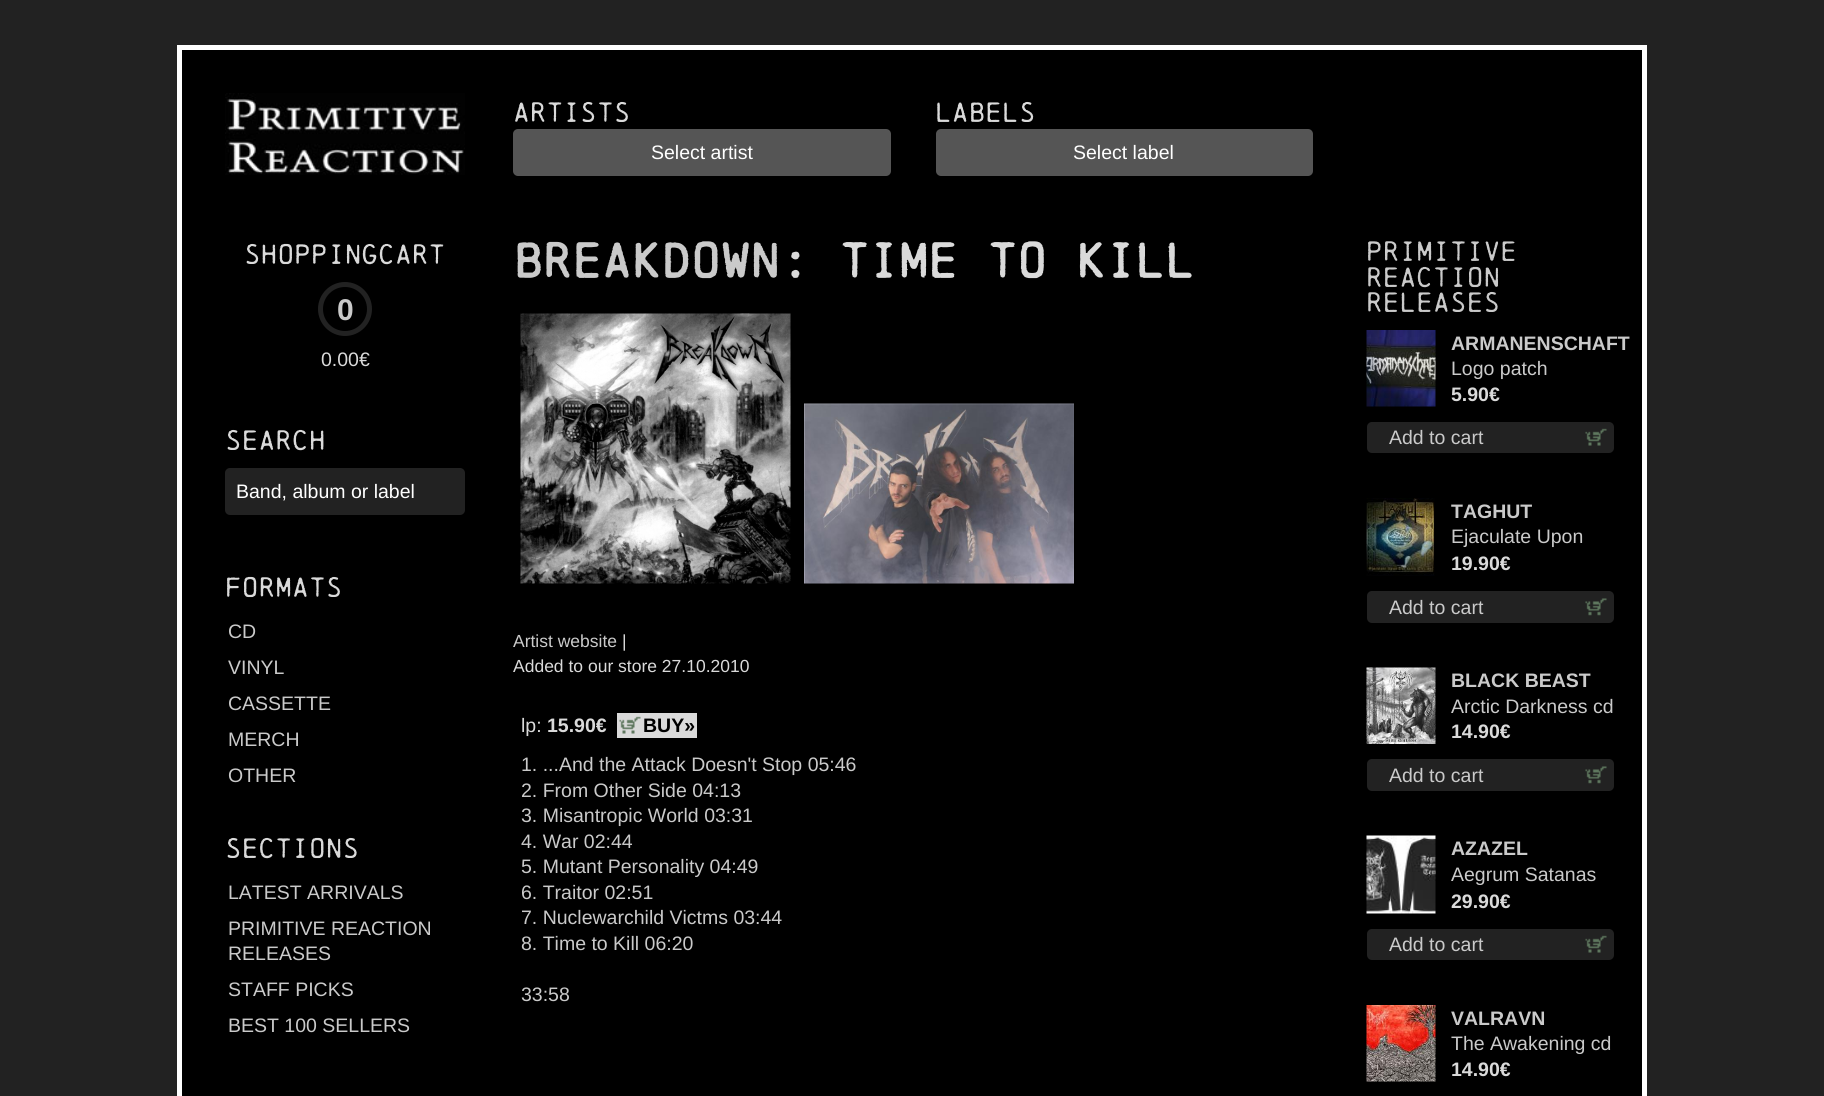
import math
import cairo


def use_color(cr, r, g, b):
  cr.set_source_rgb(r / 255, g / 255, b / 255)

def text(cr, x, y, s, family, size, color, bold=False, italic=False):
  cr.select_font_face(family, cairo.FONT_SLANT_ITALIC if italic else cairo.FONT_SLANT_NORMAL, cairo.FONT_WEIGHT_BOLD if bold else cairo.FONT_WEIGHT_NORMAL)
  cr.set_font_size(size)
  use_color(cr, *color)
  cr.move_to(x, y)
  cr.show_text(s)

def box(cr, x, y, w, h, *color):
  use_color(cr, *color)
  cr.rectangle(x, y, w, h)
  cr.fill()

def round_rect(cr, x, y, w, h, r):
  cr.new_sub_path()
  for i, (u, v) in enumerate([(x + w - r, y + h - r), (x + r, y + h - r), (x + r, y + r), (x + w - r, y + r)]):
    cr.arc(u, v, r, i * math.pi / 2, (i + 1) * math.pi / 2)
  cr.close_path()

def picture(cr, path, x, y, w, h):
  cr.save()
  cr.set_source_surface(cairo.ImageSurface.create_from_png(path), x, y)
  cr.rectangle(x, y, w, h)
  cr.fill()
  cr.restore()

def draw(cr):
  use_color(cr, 34, 34, 34)
  cr.paint()
  use_color(cr, 0, 0, 0)
  cr.rectangle(179.5, 47.5, 1465, 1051)
  cr.fill_preserve()
  use_color(cr, 255, 255, 255)
  cr.set_line_width(5)
  cr.stroke()
  use_color(cr, 85, 85, 85)
  round_rect(cr, 513, 129, 378, 47, 5)
  cr.fill()
  round_rect(cr, 936, 129, 377, 47, 5)
  cr.fill()
  picture(cr, "img_01.png", 225, 93, 240, 82)
  cr.arc(345, 309, 24.5, 0, 2 * math.pi)
  use_color(cr, 34, 34, 34)
  cr.stroke()
  round_rect(cr, 225, 468, 240, 47, 5)
  cr.fill()
  picture(cr, "img_02.png", 520, 313, 271, 271)
  picture(cr, "img_03.png", 804, 403, 270, 181)
  box(cr, 617, 713, 80, 25, 218, 218, 218)
  picture(cr, "img_04.png", 619, 716, 22, 18)
  picture(cr, "img_05.png", 1366, 330, 70, 77)
  use_color(cr, 34, 34, 34)
  round_rect(cr, 1367, 422, 247, 31, 5)
  cr.fill()
  picture(cr, "img_06.png", 1585, 428, 22, 18)
  picture(cr, "img_07.png", 1366, 498, 69, 78)
  round_rect(cr, 1367, 591, 247, 32, 5)
  cr.fill()
  picture(cr, "img_08.png", 1585, 598, 22, 18)
  picture(cr, "img_09.png", 1366, 667, 70, 77)
  round_rect(cr, 1367, 759, 247, 32, 5)
  cr.fill()
  picture(cr, "img_08.png", 1585, 766, 22, 18)
  picture(cr, "img_10.png", 1366, 835, 70, 79)
  round_rect(cr, 1367, 929, 247, 31, 5)
  cr.fill()
  picture(cr, "img_06.png", 1585, 935, 22, 18)
  picture(cr, "img_11.png", 1366, 1005, 70, 77)
  text(cr, 513, 122, "Artists", "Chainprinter", 25.5, (218, 218, 218))
  text(cr, 651, 159, "Select artist", "Liberation Sans", 19.5, (255, 255, 255))
  text(cr, 935, 122, "Labels", "Chainprinter", 25.5, (218, 218, 218))
  text(cr, 1073, 159, "Select label", "Liberation Sans", 19.5, (255, 255, 255))
  text(cr, 244, 264, "Shoppingcart", "Chainprinter", 25.5, (218, 218, 218))
  text(cr, 337, 320, "0", "Liberation Sans", 30, (202, 202, 202), bold=True)
  text(cr, 321, 366, "0.00€", "Liberation Sans", 19.5, (218, 218, 218))
  text(cr, 225, 450, "Search", "Chainprinter", 25.5, (218, 218, 218))
  text(cr, 236, 498, "Band, album or label", "Liberation Sans", 19.5, (255, 255, 255))
  text(cr, 225, 597, "Formats", "Chainprinter", 25.5, (218, 218, 218))
  text(cr, 228, 638, "CD", "Liberation Sans", 19.5, (202, 202, 202))
  text(cr, 228, 674, "VINYL", "Liberation Sans", 19.5, (202, 202, 202))
  text(cr, 228, 710, "CASSETTE", "Liberation Sans", 19.5, (202, 202, 202))
  text(cr, 228, 746, "MERCH", "Liberation Sans", 19.5, (202, 202, 202))
  text(cr, 228, 782, "OTHER", "Liberation Sans", 19.5, (202, 202, 202))
  text(cr, 225, 858, "Sections", "Chainprinter", 25.5, (218, 218, 218))
  text(cr, 228, 899, "LATEST ARRIVALS", "Liberation Sans", 19.5, (202, 202, 202))
  text(cr, 228, 935, "PRIMITIVE REACTION", "Liberation Sans", 19.5, (202, 202, 202))
  text(cr, 228, 960, "RELEASES", "Liberation Sans", 19.5, (202, 202, 202))
  text(cr, 228, 996, "STAFF PICKS", "Liberation Sans", 19.5, (202, 202, 202))
  text(cr, 228, 1032, "BEST 100 SELLERS", "Liberation Sans", 19.5, (202, 202, 202))
  text(cr, 513, 278, "BREAKDOWN", "Chainprinter", 45, (202, 202, 202), bold=True)
  text(cr, 780, 278, ": Time to Kill", "Chainprinter", 45, (218, 218, 218), bold=True)
  text(cr, 513, 647, "Artist website", "Liberation Sans", 17.5, (202, 202, 202))
  text(cr, 622, 647, "|", "Liberation Sans", 17.5, (218, 218, 218))
  text(cr, 513, 672, "Added to our store 27.10.2010", "Liberation Sans", 17.5, (218, 218, 218))
  text(cr, 521, 732, "lp:", "Liberation Sans", 19.5, (218, 218, 218))
  text(cr, 547, 732, "15.90€", "Liberation Sans", 19.5, (218, 218, 218), bold=True)
  text(cr, 643, 732, "BUY»", "Liberation Sans", 19.5, (0, 0, 0), bold=True)
  text(cr, 521, 771, "1. ...And the Attack Doesn't Stop 05:46", "Liberation Sans", 19.5, (202, 202, 202))
  text(cr, 521, 797, "2. From Other Side 04:13", "Liberation Sans", 19.5, (202, 202, 202))
  text(cr, 521, 822, "3. Misantropic World 03:31", "Liberation Sans", 19.5, (202, 202, 202))
  text(cr, 521, 848, "4. War 02:44", "Liberation Sans", 19.5, (202, 202, 202))
  text(cr, 521, 873, "5. Mutant Personality 04:49", "Liberation Sans", 19.5, (202, 202, 202))
  text(cr, 521, 899, "6. Traitor 02:51", "Liberation Sans", 19.5, (202, 202, 202))
  text(cr, 521, 924, "7. Nuclewarchild Victms 03:44", "Liberation Sans", 19.5, (202, 202, 202))
  text(cr, 521, 950, "8. Time to Kill 06:20", "Liberation Sans", 19.5, (202, 202, 202))
  text(cr, 521, 1001, "33:58", "Liberation Sans", 19.5, (202, 202, 202))
  text(cr, 1366, 261, "Primitive", "Chainprinter", 25.5, (202, 202, 202))
  text(cr, 1366, 287, "Reaction", "Chainprinter", 25.5, (202, 202, 202))
  text(cr, 1366, 312, "releases", "Chainprinter", 25.5, (202, 202, 202))
  text(cr, 1451, 350, "ARMANENSCHAFT", "Liberation Sans", 19.5, (202, 202, 202), bold=True)
  text(cr, 1451, 375, "Logo patch", "Liberation Sans", 19.5, (202, 202, 202))
  text(cr, 1451, 401, "5.90€", "Liberation Sans", 19.5, (218, 218, 218), bold=True)
  text(cr, 1389, 444, "Add to cart", "Liberation Sans", 19.5, (202, 202, 202))
  text(cr, 1451, 518, "TAGHUT", "Liberation Sans", 19.5, (202, 202, 202), bold=True)
  text(cr, 1451, 543, "Ejaculate Upon", "Liberation Sans", 19.5, (202, 202, 202))
  text(cr, 1451, 570, "19.90€", "Liberation Sans", 19.5, (218, 218, 218), bold=True)
  text(cr, 1389, 614, "Add to cart", "Liberation Sans", 19.5, (202, 202, 202))
  text(cr, 1451, 687, "BLACK BEAST", "Liberation Sans", 19.5, (202, 202, 202), bold=True)
  text(cr, 1451, 713, "Arctic Darkness cd", "Liberation Sans", 19.5, (202, 202, 202))
  text(cr, 1451, 738, "14.90€", "Liberation Sans", 19.5, (218, 218, 218), bold=True)
  text(cr, 1389, 782, "Add to cart", "Liberation Sans", 19.5, (202, 202, 202))
  text(cr, 1451, 855, "AZAZEL", "Liberation Sans", 19.5, (202, 202, 202), bold=True)
  text(cr, 1451, 881, "Aegrum Satanas", "Liberation Sans", 19.5, (202, 202, 202))
  text(cr, 1451, 908, "29.90€", "Liberation Sans", 19.5, (218, 218, 218), bold=True)
  text(cr, 1389, 951, "Add to cart", "Liberation Sans", 19.5, (202, 202, 202))
  text(cr, 1451, 1025, "VALRAVN", "Liberation Sans", 19.5, (202, 202, 202), bold=True)
  text(cr, 1451, 1050, "The Awakening cd", "Liberation Sans", 19.5, (202, 202, 202))
  text(cr, 1451, 1076, "14.90€", "Liberation Sans", 19.5, (218, 218, 218), bold=True)


surface = cairo.ImageSurface(cairo.FORMAT_RGB24, 1824, 1096)
cr = cairo.Context(surface)
options = cairo.FontOptions()
options.set_hint_metrics(cairo.HINT_METRICS_OFF)
options.set_hint_style(cairo.HINT_STYLE_NONE)
cr.set_font_options(options)
cr.set_miter_limit(4)
draw(cr)
surface.write_to_png("out.png")
